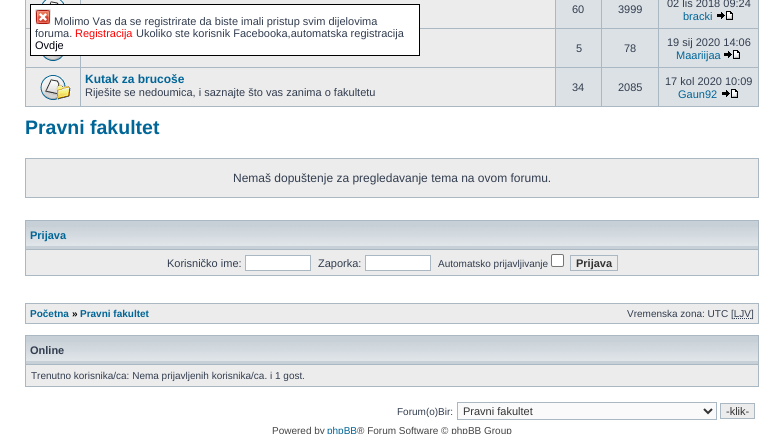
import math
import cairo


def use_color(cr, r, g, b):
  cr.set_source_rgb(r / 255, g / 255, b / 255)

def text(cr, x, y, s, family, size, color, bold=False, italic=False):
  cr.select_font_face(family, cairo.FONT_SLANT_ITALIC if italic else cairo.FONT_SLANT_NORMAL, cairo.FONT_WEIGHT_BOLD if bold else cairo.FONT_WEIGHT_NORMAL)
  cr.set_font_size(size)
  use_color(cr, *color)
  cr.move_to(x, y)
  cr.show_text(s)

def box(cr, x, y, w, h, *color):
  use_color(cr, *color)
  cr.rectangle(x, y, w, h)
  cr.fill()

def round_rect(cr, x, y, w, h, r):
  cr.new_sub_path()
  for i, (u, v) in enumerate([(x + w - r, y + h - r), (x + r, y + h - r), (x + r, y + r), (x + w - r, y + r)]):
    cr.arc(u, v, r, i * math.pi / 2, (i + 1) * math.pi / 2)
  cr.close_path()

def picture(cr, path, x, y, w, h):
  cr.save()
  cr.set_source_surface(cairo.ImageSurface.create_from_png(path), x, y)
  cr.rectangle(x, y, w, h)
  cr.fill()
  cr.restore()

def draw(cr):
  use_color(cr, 255, 255, 255)
  cr.paint()
  box(cr, 25, 0, 734, 107, 169, 184, 194)
  box(cr, 26, 0, 54, 28, 236, 236, 236)
  picture(cr, "img_01.png", 42, 0, 23, 4)
  box(cr, 81, 0, 474, 28, 236, 236, 236)
  box(cr, 556, 0, 45, 28, 220, 225, 229)
  box(cr, 602, 0, 56, 28, 220, 225, 229)
  box(cr, 659, 0, 99, 28, 220, 225, 229)
  picture(cr, "img_02.png", 717, 11, 16, 9)
  box(cr, 26, 29, 54, 38, 236, 236, 236)
  picture(cr, "img_03.png", 43, 56, 20, 5)
  box(cr, 81, 29, 474, 38, 236, 236, 236)
  box(cr, 556, 29, 45, 38, 220, 225, 229)
  box(cr, 602, 29, 56, 38, 220, 225, 229)
  box(cr, 659, 29, 99, 38, 220, 225, 229)
  picture(cr, "img_02.png", 724, 50, 16, 9)
  box(cr, 26, 68, 54, 38, 236, 236, 236)
  picture(cr, "img_04.png", 40, 75, 31, 25)
  box(cr, 81, 68, 474, 38, 236, 236, 236)
  box(cr, 556, 68, 45, 38, 220, 225, 229)
  box(cr, 602, 68, 56, 38, 220, 225, 229)
  box(cr, 659, 68, 99, 38, 220, 225, 229)
  picture(cr, "img_02.png", 722, 89, 16, 9)
  box(cr, 25, 158, 734, 40, 169, 184, 194)
  box(cr, 26, 159, 732, 38, 236, 236, 236)
  box(cr, 25, 220, 734, 56, 169, 184, 194)
  box(cr, 26, 221, 732, 28, 199, 208, 215)
  picture(cr, "img_05.png", 26, 227, 732, 19)
  box(cr, 26, 250, 732, 25, 236, 236, 236)
  use_color(cr, 255, 255, 255)
  cr.rectangle(245.5, 255.5, 65, 15)
  cr.fill_preserve()
  use_color(cr, 169, 184, 194)
  cr.set_line_width(1)
  cr.stroke()
  use_color(cr, 255, 255, 255)
  cr.rectangle(365.5, 255.5, 65, 15)
  cr.fill_preserve()
  use_color(cr, 169, 184, 194)
  cr.stroke()
  use_color(cr, 255, 255, 255)
  round_rect(cr, 551.5, 254.5, 12, 12, 1.5)
  cr.fill_preserve()
  use_color(cr, 118, 118, 118)
  cr.stroke()
  cr.rectangle(570.5, 255.5, 47, 15)
  use_color(cr, 169, 184, 194)
  cr.stroke()
  box(cr, 25, 303, 734, 21, 169, 184, 194)
  box(cr, 26, 304, 732, 19, 236, 236, 236)
  cr.new_path()
  cr.move_to(734, 318.5)
  cr.line_to(751, 318.5)
  use_color(cr, 50, 61, 79)
  cr.set_dash([1, 1])
  cr.stroke()
  box(cr, 25, 335, 734, 52, 169, 184, 194)
  box(cr, 26, 336, 732, 28, 199, 208, 215)
  picture(cr, "img_05.png", 26, 342, 732, 19)
  box(cr, 26, 365, 732, 21, 236, 236, 236)
  use_color(cr, 250, 250, 250)
  cr.rectangle(457.5, 402.5, 259, 17)
  cr.fill_preserve()
  use_color(cr, 169, 184, 194)
  cr.set_dash([])
  cr.stroke()
  cr.new_path()
  cr.move_to(704, 409)
  cr.line_to(708, 413)
  cr.line_to(712, 409)
  use_color(cr, 51, 51, 51)
  cr.set_line_width(2)
  cr.stroke()
  use_color(cr, 236, 236, 236)
  cr.rectangle(720.5, 403.5, 34, 15)
  cr.fill_preserve()
  use_color(cr, 169, 184, 194)
  cr.set_line_width(1)
  cr.stroke()
  use_color(cr, 255, 255, 255)
  cr.rectangle(30.5, 4.5, 389, 51)
  cr.fill_preserve()
  use_color(cr, 0, 0, 0)
  cr.stroke()
  picture(cr, "img_06.png", 35, 9, 16, 16)
  text(cr, 572, 13, "60", "Liberation Sans", 11, (50, 61, 79))
  text(cr, 618, 13, "3999", "Liberation Sans", 11, (50, 61, 79))
  text(cr, 667, 7, "02 lis 2018 09:24", "Liberation Sans", 11, (50, 61, 79))
  text(cr, 683, 20, "bracki", "Liberation Sans", 11, (0, 101, 151))
  text(cr, 576, 52, "5", "Liberation Sans", 11, (50, 61, 79))
  text(cr, 624, 52, "78", "Liberation Sans", 11, (50, 61, 79))
  text(cr, 667, 46, "19 sij 2020 14:06", "Liberation Sans", 11, (50, 61, 79))
  text(cr, 676, 59, "Maariijaa", "Liberation Sans", 11, (0, 101, 151))
  text(cr, 85, 83, "Kutak za brucoše", "Liberation Sans", 12, (0, 101, 151), bold=True)
  text(cr, 85, 96, "Riješite se nedoumica, i saznajte što vas zanima o fakultetu", "Liberation Sans", 11, (50, 61, 79))
  text(cr, 572, 91, "34", "Liberation Sans", 11, (50, 61, 79))
  text(cr, 618, 91, "2085", "Liberation Sans", 11, (50, 61, 79))
  text(cr, 665, 85, "17 kol 2020 10:09", "Liberation Sans", 11, (50, 61, 79))
  text(cr, 678, 98, "Gaun92", "Liberation Sans", 11, (0, 101, 151))
  text(cr, 25, 134, "Pravni fakultet", "Liberation Sans", 19.5, (0, 101, 151), bold=True)
  text(cr, 233, 182, "Nemaš dopuštenje za pregledavanje tema na ovom forumu.", "Liberation Sans", 12, (50, 61, 79))
  text(cr, 30, 239, "Prijava", "Liberation Sans", 11, (0, 101, 151), bold=True)
  text(cr, 167, 267, "Korisničko ime:", "Liberation Sans", 11, (50, 61, 79))
  text(cr, 318, 267, "Zaporka:", "Liberation Sans", 11, (50, 61, 79))
  text(cr, 438, 267, "Automatsko prijavljivanje", "Liberation Sans", 10, (50, 61, 79))
  text(cr, 576, 267, "Prijava", "Liberation Sans", 11, (51, 51, 51), bold=True)
  text(cr, 30, 317, "Početna", "Liberation Sans", 10, (0, 101, 151), bold=True)
  text(cr, 72, 317, "»", "Liberation Sans", 10, (0, 0, 0), bold=True)
  text(cr, 80, 317, "Pravni fakultet", "Liberation Sans", 10, (0, 101, 151), bold=True)
  text(cr, 627, 317, "Vremenska zona: UTC [LJV]", "Liberation Sans", 10, (50, 61, 79))
  text(cr, 30, 354, "Online", "Liberation Sans", 11, (50, 61, 79), bold=True)
  text(cr, 31, 379, "Trenutno korisnika/ca: Nema prijavljenih korisnika/ca. i 1 gost.", "Liberation Sans", 10, (50, 61, 79))
  text(cr, 397, 415, "Forum(o)Bir:", "Liberation Sans", 10, (50, 61, 79))
  text(cr, 463, 415, "Pravni fakultet", "Liberation Sans", 11, (51, 51, 51))
  text(cr, 726, 415, "-klik-", "Liberation Sans", 11, (51, 51, 51))
  text(cr, 54, 25, "Molimo Vas da se registrirate da biste imali pristup svim dijelovima", "Liberation Sans", 11, (50, 61, 79))
  text(cr, 35, 37, "foruma.", "Liberation Sans", 11, (50, 61, 79))
  text(cr, 75, 37, "Registracija", "Liberation Sans", 11, (255, 0, 0))
  text(cr, 136, 37, "Ukoliko ste korisnik Facebooka,automatska registracija", "Liberation Sans", 11, (50, 61, 79))
  text(cr, 35, 49, "Ovdje", "Liberation Sans", 11, (3, 3, 15))
  text(cr, 272, 434, "Powered by", "Liberation Sans", 10, (68, 68, 68))
  text(cr, 327, 434, "phpBB", "Liberation Sans", 10, (0, 101, 151))
  text(cr, 357, 434, "® Forum Software © phpBB Group", "Liberation Sans", 10, (68, 68, 68))


surface = cairo.ImageSurface(cairo.FORMAT_RGB24, 784, 434)
cr = cairo.Context(surface)
options = cairo.FontOptions()
options.set_hint_metrics(cairo.HINT_METRICS_OFF)
options.set_hint_style(cairo.HINT_STYLE_NONE)
cr.set_font_options(options)
cr.set_miter_limit(4)
draw(cr)
surface.write_to_png("out.png")
